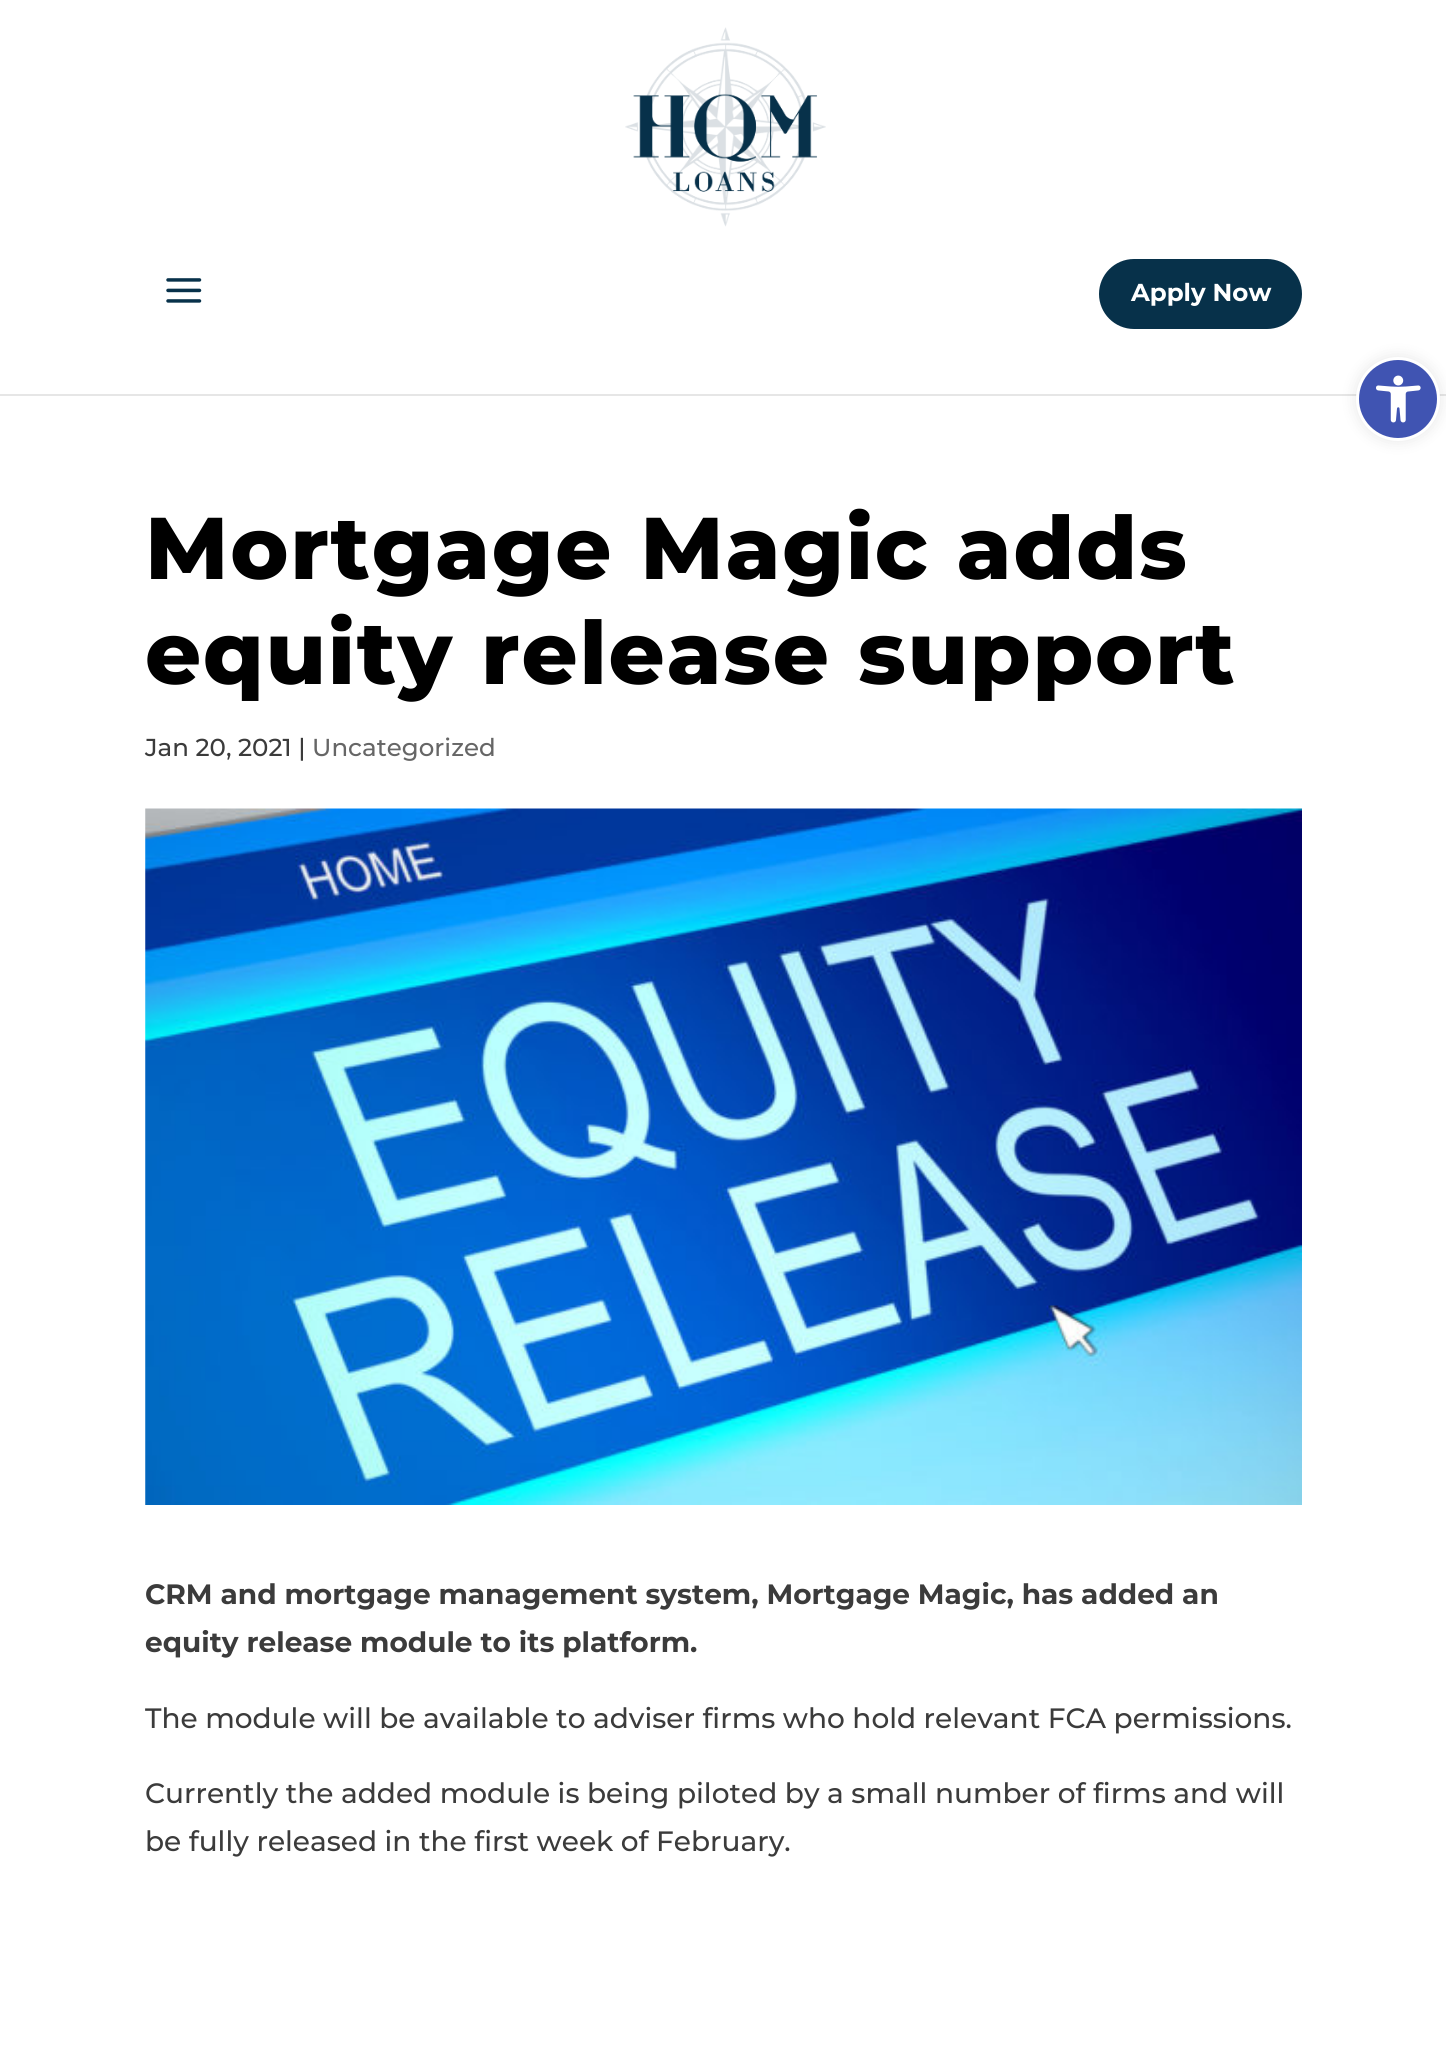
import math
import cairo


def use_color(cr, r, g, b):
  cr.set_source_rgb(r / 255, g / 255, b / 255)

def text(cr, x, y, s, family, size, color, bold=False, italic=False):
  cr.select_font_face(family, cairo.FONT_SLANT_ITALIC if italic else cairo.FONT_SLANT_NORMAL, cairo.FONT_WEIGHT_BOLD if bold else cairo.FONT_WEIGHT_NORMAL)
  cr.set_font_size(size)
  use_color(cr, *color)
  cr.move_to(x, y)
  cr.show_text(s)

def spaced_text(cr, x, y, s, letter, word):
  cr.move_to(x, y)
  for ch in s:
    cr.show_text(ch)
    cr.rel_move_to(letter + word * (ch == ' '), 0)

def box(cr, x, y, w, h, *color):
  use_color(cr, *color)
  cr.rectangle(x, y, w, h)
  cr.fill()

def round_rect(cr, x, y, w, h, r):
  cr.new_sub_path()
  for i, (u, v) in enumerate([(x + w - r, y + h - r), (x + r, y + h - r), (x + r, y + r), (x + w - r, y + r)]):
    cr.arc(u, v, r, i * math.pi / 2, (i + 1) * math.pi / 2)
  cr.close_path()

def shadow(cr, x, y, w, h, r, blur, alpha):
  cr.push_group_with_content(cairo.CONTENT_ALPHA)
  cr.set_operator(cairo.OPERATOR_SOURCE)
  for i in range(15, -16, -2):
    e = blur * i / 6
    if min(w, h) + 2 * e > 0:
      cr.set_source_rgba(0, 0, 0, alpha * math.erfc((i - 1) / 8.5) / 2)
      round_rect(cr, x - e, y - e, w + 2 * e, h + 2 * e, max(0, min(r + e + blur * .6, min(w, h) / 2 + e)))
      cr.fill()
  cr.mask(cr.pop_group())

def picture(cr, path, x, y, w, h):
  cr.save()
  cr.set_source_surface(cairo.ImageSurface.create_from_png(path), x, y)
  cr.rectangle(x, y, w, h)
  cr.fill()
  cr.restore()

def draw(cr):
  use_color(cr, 255, 255, 255)
  cr.paint()
  box(cr, 0, 394, 1446, 2, 230, 230, 230)
  picture(cr, "img_01.png", 625, 27, 201, 200)
  picture(cr, "img_02.png", 166, 278, 36, 25)
  use_color(cr, 7, 49, 74)
  round_rect(cr, 1101.5, 261.5, 198, 65, 32.5)
  cr.fill_preserve()
  cr.set_line_width(5)
  cr.stroke()
  picture(cr, "img_03.png", 145, 808, 1157, 697)
  use_color(cr, 0, 0, 0)
  shadow(cr, 1356, 357, 84, 84, 42, 7.5, 0.1)
  use_color(cr, 64, 84, 178)
  cr.arc(1398, 399, 40.5, 0, 2 * math.pi)
  cr.fill_preserve()
  use_color(cr, 255, 255, 255)
  cr.set_line_width(3)
  cr.stroke()
  picture(cr, "img_04.png", 1376, 375, 45, 48)
  text(cr, 1131, 301, "Apply Now", "Montserrat", 24.5, (255, 255, 255), bold=True)
  cr.select_font_face("Montserrat ExtraBold")
  cr.set_font_size(87.5)
  use_color(cr, 0, 0, 0)
  spaced_text(cr, 145, 579, "Mortgage Magic adds", 1.75, 0)
  spaced_text(cr, 145, 684, "equity release support", 1.75, 0)
  text(cr, 145, 756, "Jan 20, 2021 |", "Montserrat Medium", 24.5, (59, 59, 59))
  text(cr, 312, 756, "Uncategorized", "Montserrat Medium", 24.5, (102, 102, 102))
  text(cr, 145, 1604, "CRM and mortgage management system, Mortgage Magic, has added an", "Montserrat", 28, (59, 59, 59), bold=True)
  text(cr, 145, 1652, "equity release module to its platform.", "Montserrat", 28, (59, 59, 59), bold=True)
  text(cr, 145, 1728, "The module will be available to adviser firms who hold relevant FCA permissions.", "Montserrat Medium", 28, (59, 59, 59))
  text(cr, 145, 1803, "Currently the added module is being piloted by a small number of firms and will", "Montserrat Medium", 28, (59, 59, 59))
  text(cr, 145, 1851, "be fully released in the first week of February.", "Montserrat Medium", 28, (59, 59, 59))


surface = cairo.ImageSurface(cairo.FORMAT_RGB24, 1446, 2049)
cr = cairo.Context(surface)
options = cairo.FontOptions()
options.set_hint_metrics(cairo.HINT_METRICS_OFF)
options.set_hint_style(cairo.HINT_STYLE_NONE)
cr.set_font_options(options)
cr.set_miter_limit(4)
draw(cr)
surface.write_to_png("out.png")
